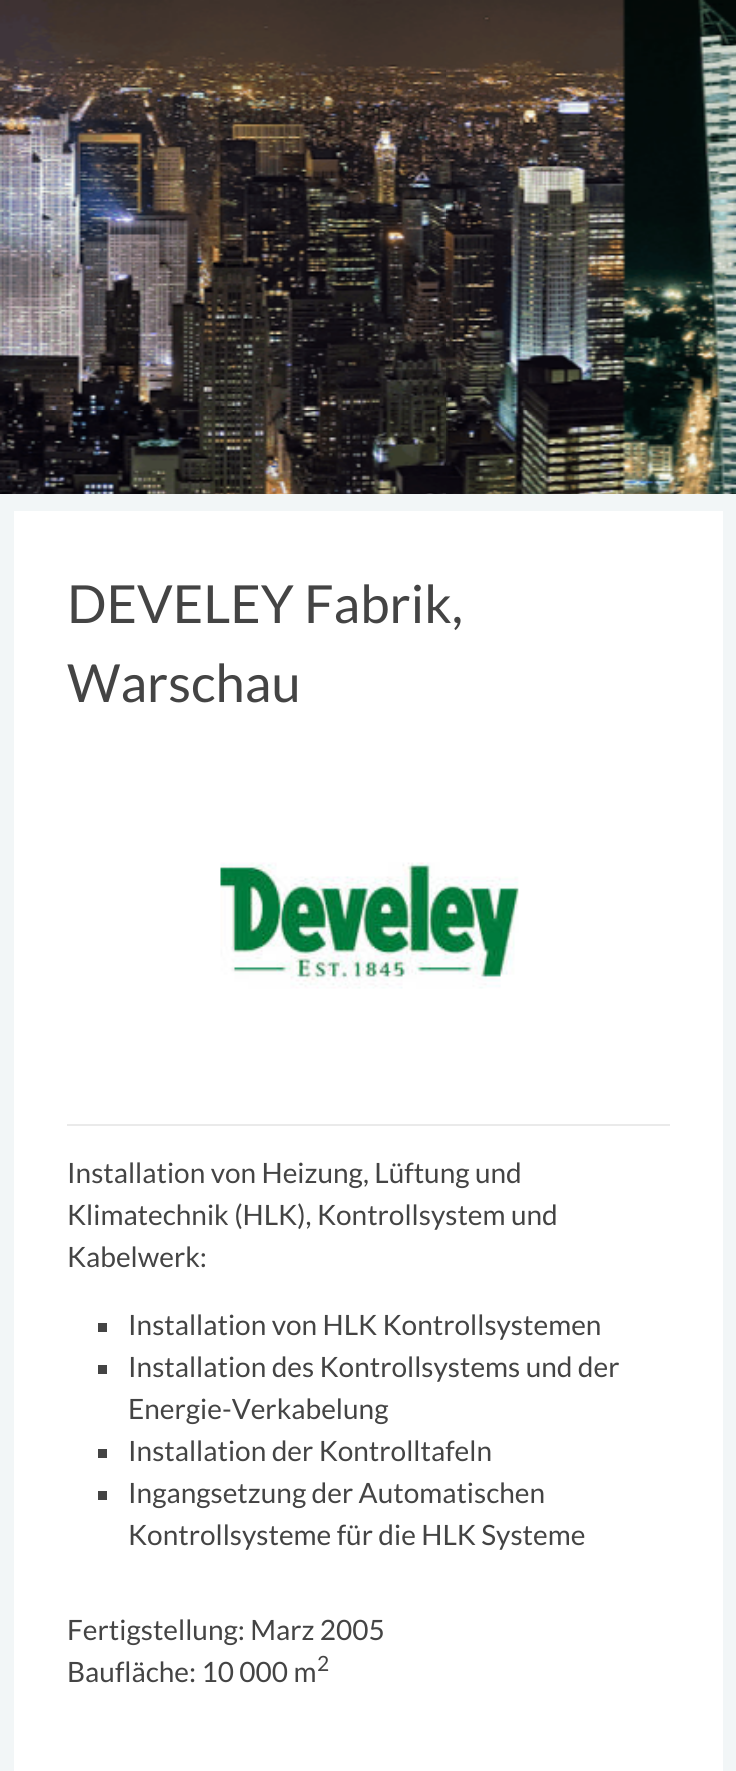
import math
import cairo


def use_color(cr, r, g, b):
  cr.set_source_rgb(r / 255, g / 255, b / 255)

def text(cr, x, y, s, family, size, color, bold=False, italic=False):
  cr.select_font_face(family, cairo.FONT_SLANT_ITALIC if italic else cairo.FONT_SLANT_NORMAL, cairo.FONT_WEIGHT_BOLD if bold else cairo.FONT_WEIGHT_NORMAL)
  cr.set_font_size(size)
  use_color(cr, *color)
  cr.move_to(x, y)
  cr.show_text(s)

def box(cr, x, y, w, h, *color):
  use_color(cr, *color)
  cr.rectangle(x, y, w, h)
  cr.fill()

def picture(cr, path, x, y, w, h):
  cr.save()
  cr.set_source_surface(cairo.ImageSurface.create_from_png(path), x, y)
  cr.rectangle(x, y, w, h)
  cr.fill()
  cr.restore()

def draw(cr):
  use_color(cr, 255, 255, 255)
  cr.paint()
  picture(cr, "img_01.png", 0, 0, 736, 494)
  box(cr, 0, 494, 736, 1277, 242, 246, 247)
  box(cr, 14, 511, 709, 1260, 255, 255, 255)
  picture(cr, "img_02.png", 220, 862, 299, 127)
  box(cr, 67, 1124, 603, 2, 234, 234, 234)
  box(cr, 98, 1323, 9, 9, 68, 68, 68)
  box(cr, 98, 1365, 9, 9, 68, 68, 68)
  box(cr, 98, 1449, 9, 9, 68, 68, 68)
  box(cr, 98, 1491, 9, 9, 68, 68, 68)
  text(cr, 67, 623, "DEVELEY Fabrik,", "Lato", 52.5, (68, 68, 68))
  text(cr, 67, 702, "Warschau", "Lato", 52.5, (68, 68, 68))
  text(cr, 67, 1183, "Installation von Heizung, Lüftung und", "Lato", 28, (68, 68, 68))
  text(cr, 67, 1225, "Klimatechnik (HLK), Kontrollsystem und", "Lato", 28, (68, 68, 68))
  text(cr, 67, 1267, "Kabelwerk:", "Lato", 28, (68, 68, 68))
  text(cr, 128, 1335, "Installation von HLK Kontrollsystemen", "Lato", 28, (68, 68, 68))
  text(cr, 128, 1377, "Installation des Kontrollsystems und der", "Lato", 28, (68, 68, 68))
  text(cr, 128, 1419, "Energie-Verkabelung", "Lato", 28, (68, 68, 68))
  text(cr, 128, 1461, "Installation der Kontrolltafeln", "Lato", 28, (68, 68, 68))
  text(cr, 128, 1503, "Ingangsetzung der Automatischen", "Lato", 28, (68, 68, 68))
  text(cr, 128, 1545, "Kontrollsysteme für die HLK Systeme", "Lato", 28, (68, 68, 68))
  text(cr, 67, 1640, "Fertigstellung: Marz 2005", "Lato", 28, (68, 68, 68))
  text(cr, 67, 1682, "Baufläche: 10 000 m", "Lato", 28, (68, 68, 68))
  text(cr, 317, 1671, "2", "Lato", 21, (68, 68, 68))


surface = cairo.ImageSurface(cairo.FORMAT_RGB24, 736, 1771)
cr = cairo.Context(surface)
options = cairo.FontOptions()
options.set_hint_metrics(cairo.HINT_METRICS_OFF)
options.set_hint_style(cairo.HINT_STYLE_NONE)
cr.set_font_options(options)
cr.set_miter_limit(4)
draw(cr)
surface.write_to_png("out.png")
